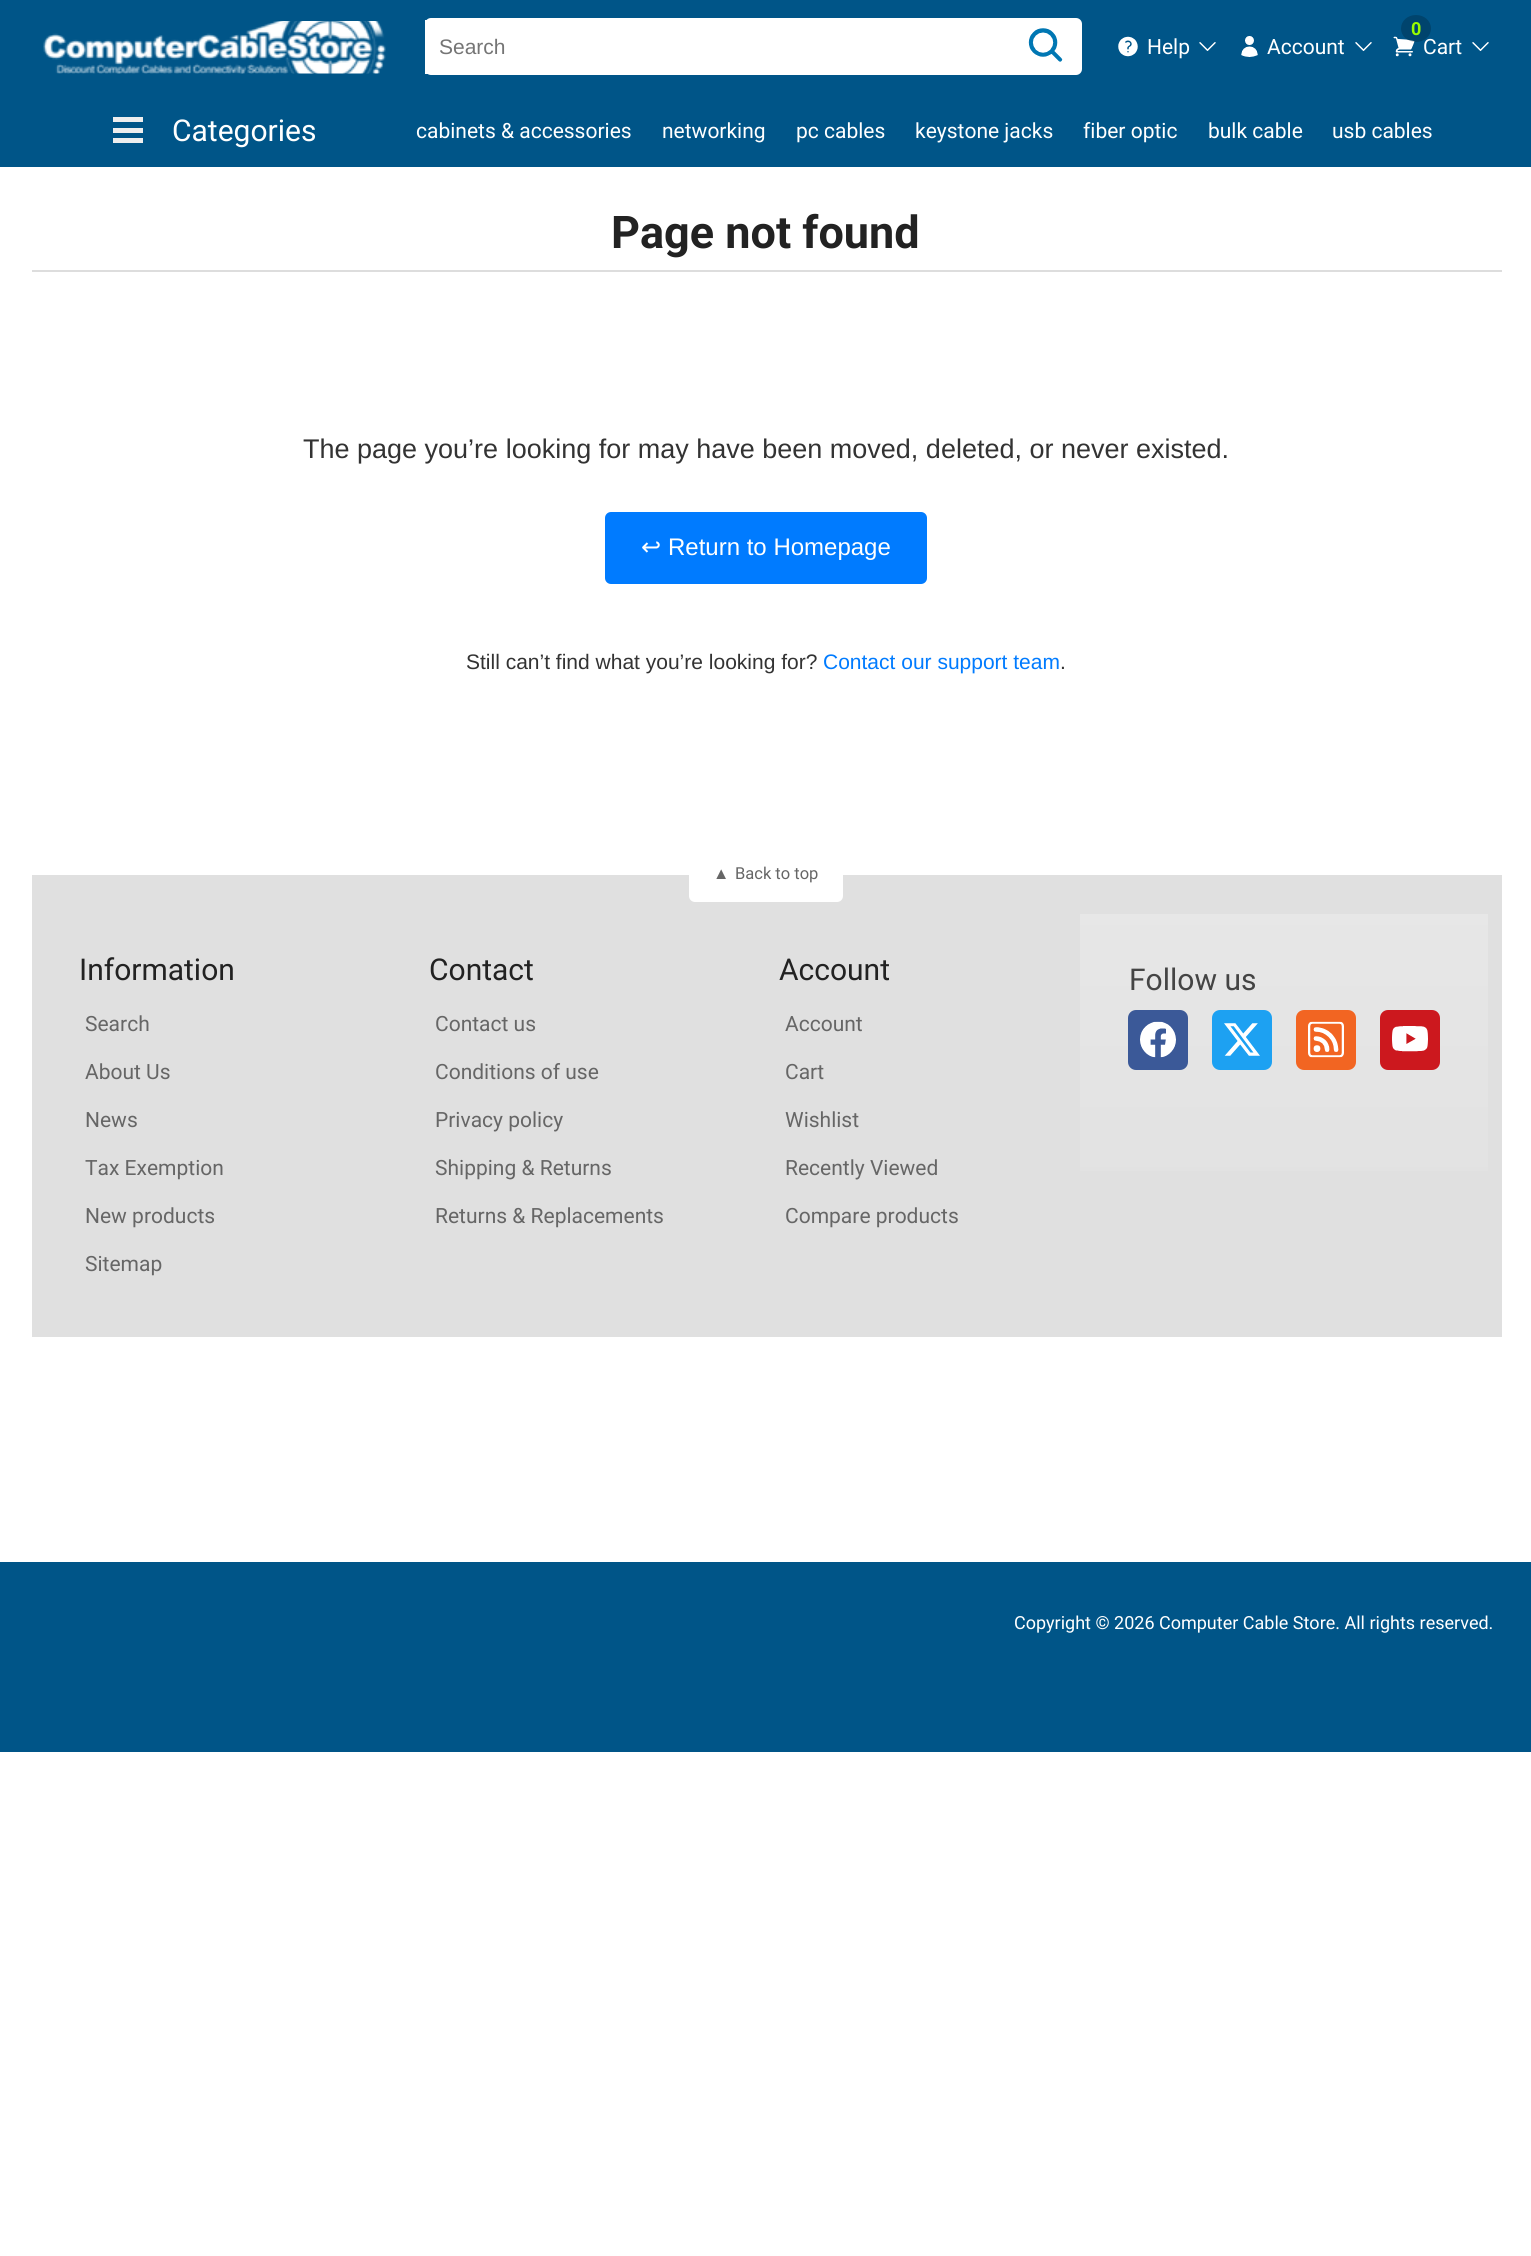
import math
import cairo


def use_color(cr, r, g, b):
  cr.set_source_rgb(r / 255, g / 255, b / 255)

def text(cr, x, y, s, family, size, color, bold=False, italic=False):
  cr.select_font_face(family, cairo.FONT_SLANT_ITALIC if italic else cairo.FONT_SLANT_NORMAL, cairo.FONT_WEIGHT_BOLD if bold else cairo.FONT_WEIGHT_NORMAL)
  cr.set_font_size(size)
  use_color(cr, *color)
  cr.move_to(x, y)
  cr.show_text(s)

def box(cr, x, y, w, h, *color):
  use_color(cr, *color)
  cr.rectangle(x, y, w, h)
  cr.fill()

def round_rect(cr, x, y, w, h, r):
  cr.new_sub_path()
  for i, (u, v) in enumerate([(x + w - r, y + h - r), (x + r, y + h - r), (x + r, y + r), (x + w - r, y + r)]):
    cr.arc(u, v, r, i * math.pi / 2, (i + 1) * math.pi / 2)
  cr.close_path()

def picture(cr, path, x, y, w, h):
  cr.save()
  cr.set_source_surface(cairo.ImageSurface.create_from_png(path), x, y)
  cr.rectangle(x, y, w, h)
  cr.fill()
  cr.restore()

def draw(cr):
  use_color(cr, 255, 255, 255)
  cr.paint()
  box(cr, 0, 0, 1531, 167, 0, 85, 136)
  picture(cr, "img_01.png", 43, 21, 343, 53)
  use_color(cr, 255, 255, 255)
  round_rect(cr, 425, 18, 657, 57, 6)
  cr.fill()
  box(cr, 425, 20, 3, 54, 255, 255, 255)
  picture(cr, "img_02.png", 1028, 28, 35, 34)
  picture(cr, "img_03.png", 1118, 36, 20, 21)
  picture(cr, "img_04.png", 1199, 42, 17, 9)
  picture(cr, "img_05.png", 1241, 36, 17, 21)
  picture(cr, "img_04.png", 1355, 42, 17, 9)
  picture(cr, "img_06.png", 1393, 36, 22, 21)
  picture(cr, "img_04.png", 1472, 42, 17, 9)
  box(cr, 113, 117, 30, 5, 238, 238, 238)
  box(cr, 113, 128, 30, 5, 238, 238, 238)
  box(cr, 113, 138, 30, 5, 238, 238, 238)
  box(cr, 32, 270, 1470, 2, 221, 221, 221)
  use_color(cr, 0, 123, 255)
  round_rect(cr, 605, 512, 322, 72, 6)
  cr.fill()
  box(cr, 32, 875, 1470, 462, 224, 224, 224)
  use_color(cr, 255, 255, 255)
  round_rect(cr, 689, 846, 154, 56, 6)
  cr.fill()
  gradient = cairo.LinearGradient(1284, 708, 1284, 1325)
  gradient.add_color_stop_rgba(0, 0.918, 0.918, 0.918, 1)
  gradient.add_color_stop_rgba(1, 0.878, 0.878, 0.878, 1)
  cr.set_source(gradient)
  cr.rectangle(1080, 914, 408, 257)
  cr.fill()
  use_color(cr, 59, 89, 152)
  round_rect(cr, 1128, 1010, 60, 60, 8)
  cr.fill()
  picture(cr, "img_07.png", 1140, 1021, 36, 37)
  use_color(cr, 29, 161, 242)
  round_rect(cr, 1212, 1010, 60, 60, 8)
  cr.fill()
  picture(cr, "img_08.png", 1224, 1023, 36, 33)
  use_color(cr, 242, 101, 34)
  round_rect(cr, 1296, 1010, 60, 60, 8)
  cr.fill()
  picture(cr, "img_09.png", 1308, 1021, 36, 37)
  use_color(cr, 204, 24, 30)
  round_rect(cr, 1380, 1010, 60, 60, 8)
  cr.fill()
  picture(cr, "img_10.png", 1392, 1026, 36, 26)
  box(cr, 0, 1562, 1531, 190, 0, 85, 136)
  text(cr, 439, 54, "Search", "Liberation Sans", 21, (117, 117, 117))
  text(cr, 1147, 54, "Help", "Roboto", 21, (255, 255, 255))
  text(cr, 1267, 54, "Account", "Roboto", 21, (255, 255, 255))
  text(cr, 1423, 54, "Cart", "Roboto", 21, (255, 255, 255))
  cr.set_source_rgba(0, 0, 0, 0.2)
  cr.new_path()
  cr.move_to(1416, 15)
  cr.curve_to(1424.5, 15, 1431, 21, 1431, 28.5)
  cr.curve_to(1431, 36, 1424.5, 42, 1416, 42)
  cr.curve_to(1407.5, 42, 1401, 36, 1401, 28.5)
  cr.curve_to(1401, 21, 1407.5, 15, 1416, 15)
  cr.close_path()
  cr.fill()
  text(cr, 1411, 35, "0", "Roboto", 18, (152, 251, 0), bold=True)
  text(cr, 172, 141, "Categories", "Roboto", 30, (255, 255, 255))
  text(cr, 416, 138, "cabinets & accessories", "Roboto", 21, (255, 255, 255))
  text(cr, 662, 138, "networking", "Roboto", 21, (255, 255, 255))
  text(cr, 796, 138, "pc cables", "Roboto", 21, (255, 255, 255))
  text(cr, 915, 138, "keystone jacks", "Roboto", 21, (255, 255, 255))
  text(cr, 1083, 138, "fiber optic", "Roboto", 21, (255, 255, 255))
  text(cr, 1208, 138, "bulk cable", "Roboto", 21, (255, 255, 255))
  text(cr, 1332, 138, "usb cables", "Roboto", 21, (255, 255, 255))
  text(cr, 611, 248, "Page not found", "Roboto", 45, (34, 34, 34), bold=True)
  text(cr, 303, 458, "The page you’re looking for may have been moved, deleted, or never existed.", "Liberation Sans", 27, (51, 51, 51))
  text(cr, 641, 555, "↩", "DejaVu Sans", 24, (255, 255, 255))
  text(cr, 668, 555, "Return to Homepage", "Liberation Sans", 24, (255, 255, 255))
  text(cr, 466, 669, "Still can’t find what you’re looking for?", "Liberation Sans", 21, (51, 51, 51))
  text(cr, 823, 669, "Contact our support team", "Liberation Sans", 21, (0, 123, 255))
  text(cr, 1060, 669, ".", "Liberation Sans", 21, (51, 51, 51))
  text(cr, 713, 879, "▲", "Liberation Sans", 16.5, (102, 102, 102))
  text(cr, 735, 879, "Back to top", "Roboto", 16.5, (102, 102, 102))
  text(cr, 79, 980, "Information", "Roboto", 30, (34, 34, 34))
  text(cr, 85, 1031, "Search", "Roboto", 21, (102, 102, 102))
  text(cr, 85, 1079, "About Us", "Roboto", 21, (102, 102, 102))
  text(cr, 85, 1127, "News", "Roboto", 21, (102, 102, 102))
  text(cr, 85, 1175, "Tax Exemption", "Roboto", 21, (102, 102, 102))
  text(cr, 85, 1223, "New products", "Roboto", 21, (102, 102, 102))
  text(cr, 85, 1271, "Sitemap", "Roboto", 21, (102, 102, 102))
  text(cr, 429, 980, "Contact", "Roboto", 30, (34, 34, 34))
  text(cr, 435, 1031, "Contact us", "Roboto", 21, (102, 102, 102))
  text(cr, 435, 1079, "Conditions of use", "Roboto", 21, (102, 102, 102))
  text(cr, 435, 1127, "Privacy policy", "Roboto", 21, (102, 102, 102))
  text(cr, 435, 1175, "Shipping & Returns", "Roboto", 21, (102, 102, 102))
  text(cr, 435, 1223, "Returns & Replacements", "Roboto", 21, (102, 102, 102))
  text(cr, 779, 980, "Account", "Roboto", 30, (34, 34, 34))
  text(cr, 785, 1031, "Account", "Roboto", 21, (102, 102, 102))
  text(cr, 785, 1079, "Cart", "Roboto", 21, (102, 102, 102))
  text(cr, 785, 1127, "Wishlist", "Roboto", 21, (102, 102, 102))
  text(cr, 785, 1175, "Recently Viewed", "Roboto", 21, (102, 102, 102))
  text(cr, 785, 1223, "Compare products", "Roboto", 21, (102, 102, 102))
  text(cr, 1129, 990, "Follow us", "Roboto", 30, (68, 68, 68))
  text(cr, 1014, 1629, "Copyright © 2026 Computer Cable Store. All rights reserved.", "Roboto", 18, (255, 255, 255))


surface = cairo.ImageSurface(cairo.FORMAT_RGB24, 1531, 2256)
cr = cairo.Context(surface)
options = cairo.FontOptions()
options.set_hint_metrics(cairo.HINT_METRICS_OFF)
options.set_hint_style(cairo.HINT_STYLE_NONE)
cr.set_font_options(options)
cr.set_miter_limit(4)
draw(cr)
surface.write_to_png("out.png")
